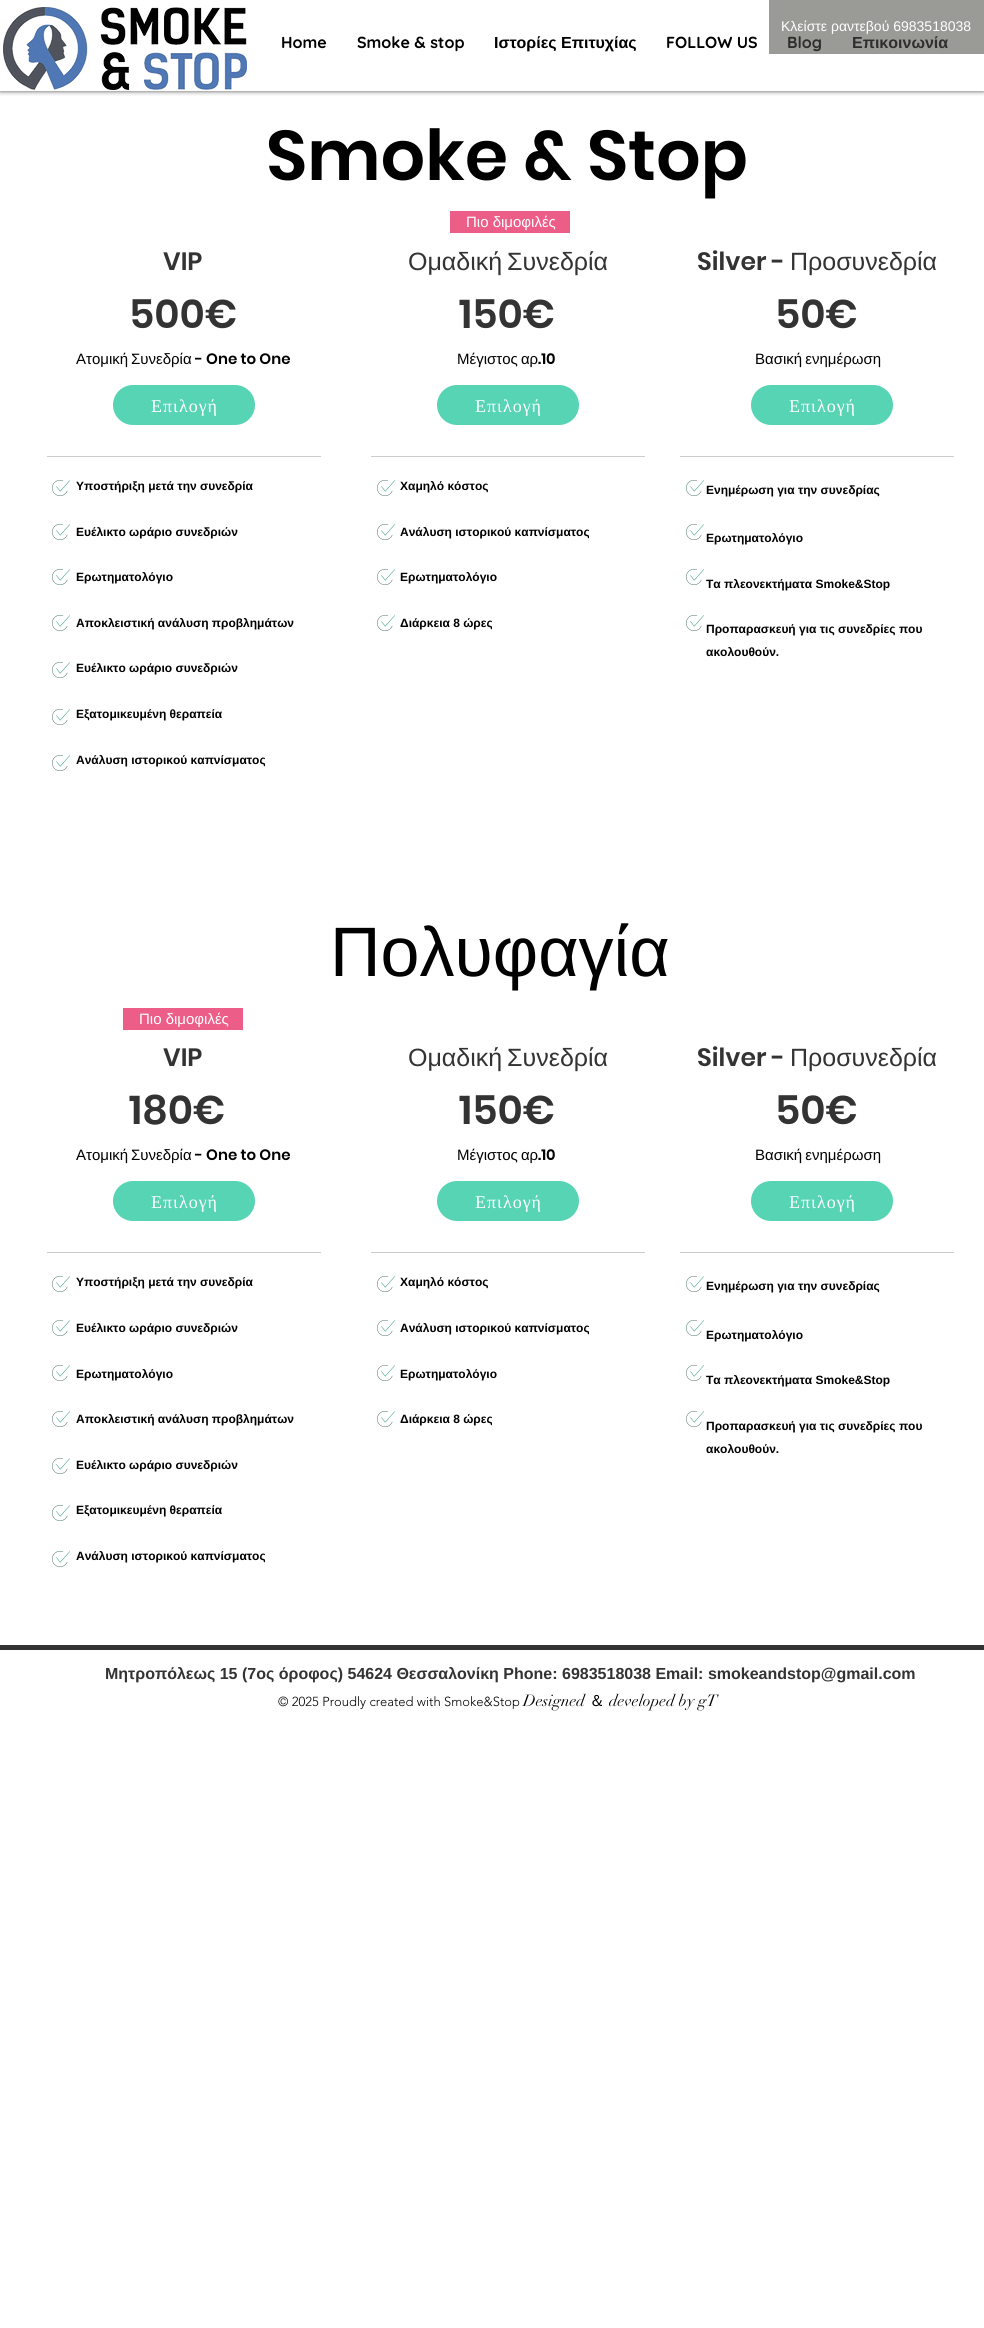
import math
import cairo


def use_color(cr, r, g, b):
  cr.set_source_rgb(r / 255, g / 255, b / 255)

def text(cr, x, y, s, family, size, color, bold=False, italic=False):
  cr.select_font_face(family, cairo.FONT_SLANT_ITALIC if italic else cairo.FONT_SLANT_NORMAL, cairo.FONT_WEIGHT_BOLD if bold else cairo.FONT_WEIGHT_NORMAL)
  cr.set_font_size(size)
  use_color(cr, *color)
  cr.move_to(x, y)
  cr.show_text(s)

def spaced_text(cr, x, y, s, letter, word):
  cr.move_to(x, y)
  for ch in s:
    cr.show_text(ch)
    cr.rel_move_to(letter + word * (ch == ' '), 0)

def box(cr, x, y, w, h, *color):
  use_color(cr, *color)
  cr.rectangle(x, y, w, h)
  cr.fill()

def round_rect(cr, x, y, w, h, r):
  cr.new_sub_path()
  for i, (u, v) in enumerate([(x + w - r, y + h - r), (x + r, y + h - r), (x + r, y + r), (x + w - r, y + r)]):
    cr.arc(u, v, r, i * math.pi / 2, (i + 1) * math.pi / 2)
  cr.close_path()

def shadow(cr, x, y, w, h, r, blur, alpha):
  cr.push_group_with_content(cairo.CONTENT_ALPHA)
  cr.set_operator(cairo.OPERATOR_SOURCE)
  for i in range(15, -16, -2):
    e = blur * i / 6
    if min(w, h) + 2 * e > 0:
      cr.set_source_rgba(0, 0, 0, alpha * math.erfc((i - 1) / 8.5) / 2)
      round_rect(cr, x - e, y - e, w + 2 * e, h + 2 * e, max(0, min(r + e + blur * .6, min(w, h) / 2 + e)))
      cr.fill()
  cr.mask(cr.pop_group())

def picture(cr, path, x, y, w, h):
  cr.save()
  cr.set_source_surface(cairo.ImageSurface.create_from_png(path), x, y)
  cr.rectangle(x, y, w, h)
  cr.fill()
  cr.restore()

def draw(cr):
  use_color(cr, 255, 255, 255)
  cr.paint()
  box(cr, 769, 0, 215, 54, 154, 154, 151)
  cr.save()
  cr.rectangle(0, 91, 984, 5)
  cr.clip()
  use_color(cr, 0, 0, 0)
  shadow(cr, 0, 0, 984, 91, 0, 2.5, 0.7)
  cr.restore()
  picture(cr, "img_01.png", 3, 7, 244, 83)
  use_color(cr, 87, 212, 180)
  round_rect(cr, 113, 385, 142, 40, 20)
  cr.fill()
  box(cr, 47, 456, 274, 1, 204, 204, 204)
  picture(cr, "img_02.png", 52, 480, 18, 16)
  picture(cr, "img_02.png", 52, 524, 18, 16)
  picture(cr, "img_02.png", 52, 569, 18, 16)
  picture(cr, "img_02.png", 52, 615, 18, 16)
  picture(cr, "img_02.png", 52, 662, 18, 16)
  picture(cr, "img_02.png", 52, 709, 18, 16)
  picture(cr, "img_02.png", 52, 755, 18, 16)
  use_color(cr, 87, 212, 180)
  round_rect(cr, 437, 385, 142, 40, 20)
  cr.fill()
  box(cr, 371, 456, 274, 1, 204, 204, 204)
  picture(cr, "img_02.png", 377, 480, 18, 16)
  picture(cr, "img_02.png", 377, 524, 18, 16)
  picture(cr, "img_02.png", 377, 569, 18, 16)
  picture(cr, "img_02.png", 377, 615, 18, 16)
  use_color(cr, 87, 212, 180)
  round_rect(cr, 751, 385, 142, 40, 20)
  cr.fill()
  box(cr, 680, 456, 274, 1, 204, 204, 204)
  picture(cr, "img_02.png", 686, 480, 18, 16)
  picture(cr, "img_02.png", 686, 524, 18, 16)
  picture(cr, "img_02.png", 686, 569, 18, 16)
  picture(cr, "img_02.png", 686, 615, 18, 16)
  box(cr, 450, 211, 120, 22, 236, 94, 135)
  box(cr, 123, 1008, 120, 22, 236, 94, 135)
  use_color(cr, 87, 212, 180)
  round_rect(cr, 113, 1181, 142, 40, 20)
  cr.fill()
  box(cr, 47, 1252, 274, 1, 204, 204, 204)
  picture(cr, "img_02.png", 52, 1276, 18, 16)
  picture(cr, "img_02.png", 52, 1320, 18, 16)
  picture(cr, "img_02.png", 52, 1365, 18, 16)
  picture(cr, "img_02.png", 52, 1411, 18, 16)
  picture(cr, "img_02.png", 52, 1458, 18, 16)
  picture(cr, "img_02.png", 52, 1505, 18, 16)
  picture(cr, "img_02.png", 52, 1551, 18, 16)
  use_color(cr, 87, 212, 180)
  round_rect(cr, 437, 1181, 142, 40, 20)
  cr.fill()
  box(cr, 371, 1252, 274, 1, 204, 204, 204)
  picture(cr, "img_02.png", 377, 1276, 18, 16)
  picture(cr, "img_02.png", 377, 1320, 18, 16)
  picture(cr, "img_02.png", 377, 1365, 18, 16)
  picture(cr, "img_02.png", 377, 1411, 18, 16)
  use_color(cr, 87, 212, 180)
  round_rect(cr, 751, 1181, 142, 40, 20)
  cr.fill()
  box(cr, 680, 1252, 274, 1, 204, 204, 204)
  picture(cr, "img_02.png", 686, 1276, 18, 16)
  picture(cr, "img_02.png", 686, 1320, 18, 16)
  picture(cr, "img_02.png", 686, 1365, 18, 16)
  picture(cr, "img_02.png", 686, 1411, 18, 16)
  box(cr, 0, 1645, 984, 5, 51, 51, 51)
  text(cr, 781, 31, "Κλείστε ραντεβού 6983518038", "Liberation Sans", 14, (255, 255, 255))
  text(cr, 281, 48, "Home", "Quicksand", 16, (0, 0, 0), bold=True)
  text(cr, 357, 48, "Smoke & stop", "Quicksand", 16, (0, 0, 0), bold=True)
  text(cr, 494, 48, "Ιστορίες Επιτυχίας", "Liberation Sans", 16, (0, 0, 0), bold=True)
  text(cr, 666, 48, "FOLLOW US", "Quicksand", 16, (0, 0, 0), bold=True)
  text(cr, 787, 48, "Blog", "Quicksand", 16, (47, 46, 44), bold=True)
  text(cr, 852, 48, "Επικοινωνία", "Liberation Sans", 16, (47, 46, 44), bold=True)
  text(cr, 266, 180, "Smoke & Stop", "Poppins SemiBold", 70, (0, 0, 0))
  text(cr, 163, 270, "VIP", "Poppins SemiBold", 25, (51, 51, 51))
  text(cr, 129, 328, "500€", "Poppins SemiBold", 40, (51, 51, 51))
  text(cr, 76, 364, "Ατομική", "Liberation Sans", 15, (0, 0, 0))
  text(cr, 131, 364, "Συνεδρία", "Liberation Sans", 15, (0, 0, 0))
  text(cr, 195, 364, "- One to One", "Poppins SemiBold", 15, (0, 0, 0))
  cr.select_font_face("Liberation Serif")
  cr.set_font_size(18)
  use_color(cr, 255, 255, 255)
  spaced_text(cr, 151, 412, "Επιλογή", 1, 0)
  text(cr, 76, 490, "Υποστήριξη μετά την συνεδρία", "Liberation Sans", 12, (0, 0, 0), bold=True)
  text(cr, 76, 536, "Ευέλικτο ωράριο συνεδριών", "Liberation Sans", 12, (0, 0, 0), bold=True)
  text(cr, 76, 581, "Ερωτηματολόγιο", "Liberation Sans", 12, (0, 0, 0), bold=True)
  text(cr, 76, 627, "Αποκλειστική ανάλυση προβλημάτων", "Liberation Sans", 12, (0, 0, 0), bold=True)
  text(cr, 76, 672, "Ευέλικτο ωράριο συνεδριών", "Liberation Sans", 12, (0, 0, 0), bold=True)
  text(cr, 76, 718, "Εξατομικευμένη θεραπεία", "Liberation Sans", 12, (0, 0, 0), bold=True)
  text(cr, 76, 764, "Ανάλυση ιστορικού καπνίσματος", "Liberation Sans", 12, (0, 0, 0), bold=True)
  cr.select_font_face("Liberation Sans")
  cr.set_font_size(25)
  use_color(cr, 51, 51, 51)
  spaced_text(cr, 408, 270, "Ομαδική Συνεδρία", 0, -2)
  text(cr, 459, 328, "150€", "Poppins SemiBold", 40, (51, 51, 51))
  cr.select_font_face("Liberation Sans")
  cr.set_font_size(15)
  use_color(cr, 0, 0, 0)
  spaced_text(cr, 457, 364, "Μέγιστος αρ", 0, -1)
  text(cr, 538, 364, ".10", "Poppins SemiBold", 15, (0, 0, 0))
  cr.select_font_face("Liberation Serif")
  cr.set_font_size(18)
  use_color(cr, 255, 255, 255)
  spaced_text(cr, 475, 412, "Επιλογή", 1, 0)
  text(cr, 400, 490, "Χαμηλό κόστος", "Liberation Sans", 12, (0, 0, 0), bold=True)
  text(cr, 400, 536, "Ανάλυση ιστορικού καπνίσματος", "Liberation Sans", 12, (0, 0, 0), bold=True)
  text(cr, 400, 581, "Ερωτηματολόγιο", "Liberation Sans", 12, (0, 0, 0), bold=True)
  text(cr, 400, 627, "Διάρκεια 8 ώρες", "Liberation Sans", 12, (0, 0, 0), bold=True)
  text(cr, 697, 270, "Silver -", "Poppins SemiBold", 25, (51, 51, 51))
  text(cr, 790, 270, "Προσυνεδρία", "Liberation Sans", 25, (51, 51, 51))
  text(cr, 775, 328, "50€", "Poppins SemiBold", 40, (51, 51, 51))
  cr.select_font_face("Liberation Sans")
  cr.set_font_size(15)
  use_color(cr, 0, 0, 0)
  spaced_text(cr, 755, 364, "Βασική ενημέρωση", 0, -1)
  cr.select_font_face("Liberation Serif")
  cr.set_font_size(18)
  use_color(cr, 255, 255, 255)
  spaced_text(cr, 789, 412, "Επιλογή", 1, 0)
  text(cr, 706, 494, "Ενημέρωση για την συνεδρίας", "Liberation Sans", 12, (0, 0, 0), bold=True)
  text(cr, 706, 542, "Ερωτηματολόγιο", "Liberation Sans", 12, (0, 0, 0), bold=True)
  text(cr, 706, 588, "Τα πλεονεκτήματα Smoke&Stop", "Liberation Sans", 12, (0, 0, 0), bold=True)
  text(cr, 706, 633, "Προπαρασκευή για τις συνεδρίες που", "Liberation Sans", 12, (0, 0, 0), bold=True)
  text(cr, 706, 656, "ακολουθούν.", "Liberation Sans", 12, (0, 0, 0), bold=True)
  text(cr, 466, 227, "Πιο διμοφιλές", "Liberation Sans", 15, (255, 255, 255))
  text(cr, 330, 976, "Πολυφαγία", "Liberation Sans", 70, (0, 0, 0))
  text(cr, 139, 1024, "Πιο διμοφιλές", "Liberation Sans", 15, (255, 255, 255))
  text(cr, 163, 1066, "VIP", "Poppins SemiBold", 25, (51, 51, 51))
  text(cr, 129, 1124, "180€", "Poppins SemiBold", 40, (51, 51, 51))
  text(cr, 76, 1160, "Ατομική", "Liberation Sans", 15, (0, 0, 0))
  text(cr, 131, 1160, "Συνεδρία", "Liberation Sans", 15, (0, 0, 0))
  text(cr, 195, 1160, "- One to One", "Poppins SemiBold", 15, (0, 0, 0))
  cr.select_font_face("Liberation Serif")
  cr.set_font_size(18)
  use_color(cr, 255, 255, 255)
  spaced_text(cr, 151, 1208, "Επιλογή", 1, 0)
  text(cr, 76, 1286, "Υποστήριξη μετά την συνεδρία", "Liberation Sans", 12, (0, 0, 0), bold=True)
  text(cr, 76, 1332, "Ευέλικτο ωράριο συνεδριών", "Liberation Sans", 12, (0, 0, 0), bold=True)
  text(cr, 76, 1378, "Ερωτηματολόγιο", "Liberation Sans", 12, (0, 0, 0), bold=True)
  text(cr, 76, 1423, "Αποκλειστική ανάλυση προβλημάτων", "Liberation Sans", 12, (0, 0, 0), bold=True)
  text(cr, 76, 1469, "Ευέλικτο ωράριο συνεδριών", "Liberation Sans", 12, (0, 0, 0), bold=True)
  text(cr, 76, 1514, "Εξατομικευμένη θεραπεία", "Liberation Sans", 12, (0, 0, 0), bold=True)
  text(cr, 76, 1560, "Ανάλυση ιστορικού καπνίσματος", "Liberation Sans", 12, (0, 0, 0), bold=True)
  cr.select_font_face("Liberation Sans")
  cr.set_font_size(25)
  use_color(cr, 51, 51, 51)
  spaced_text(cr, 408, 1066, "Ομαδική Συνεδρία", 0, -2)
  text(cr, 459, 1124, "150€", "Poppins SemiBold", 40, (51, 51, 51))
  cr.select_font_face("Liberation Sans")
  cr.set_font_size(15)
  use_color(cr, 0, 0, 0)
  spaced_text(cr, 457, 1160, "Μέγιστος αρ", 0, -1)
  text(cr, 538, 1160, ".10", "Poppins SemiBold", 15, (0, 0, 0))
  cr.select_font_face("Liberation Serif")
  cr.set_font_size(18)
  use_color(cr, 255, 255, 255)
  spaced_text(cr, 475, 1208, "Επιλογή", 1, 0)
  text(cr, 400, 1286, "Χαμηλό κόστος", "Liberation Sans", 12, (0, 0, 0), bold=True)
  text(cr, 400, 1332, "Ανάλυση ιστορικού καπνίσματος", "Liberation Sans", 12, (0, 0, 0), bold=True)
  text(cr, 400, 1378, "Ερωτηματολόγιο", "Liberation Sans", 12, (0, 0, 0), bold=True)
  text(cr, 400, 1423, "Διάρκεια 8 ώρες", "Liberation Sans", 12, (0, 0, 0), bold=True)
  text(cr, 697, 1066, "Silver -", "Poppins SemiBold", 25, (51, 51, 51))
  text(cr, 790, 1066, "Προσυνεδρία", "Liberation Sans", 25, (51, 51, 51))
  text(cr, 775, 1124, "50€", "Poppins SemiBold", 40, (51, 51, 51))
  cr.select_font_face("Liberation Sans")
  cr.set_font_size(15)
  use_color(cr, 0, 0, 0)
  spaced_text(cr, 755, 1160, "Βασική ενημέρωση", 0, -1)
  cr.select_font_face("Liberation Serif")
  cr.set_font_size(18)
  use_color(cr, 255, 255, 255)
  spaced_text(cr, 789, 1208, "Επιλογή", 1, 0)
  text(cr, 706, 1290, "Ενημέρωση για την συνεδρίας", "Liberation Sans", 12, (0, 0, 0), bold=True)
  text(cr, 706, 1339, "Ερωτηματολόγιο", "Liberation Sans", 12, (0, 0, 0), bold=True)
  text(cr, 706, 1384, "Τα πλεονεκτήματα Smoke&Stop", "Liberation Sans", 12, (0, 0, 0), bold=True)
  text(cr, 706, 1430, "Προπαρασκευή για τις συνεδρίες που", "Liberation Sans", 12, (0, 0, 0), bold=True)
  text(cr, 706, 1453, "ακολουθούν.", "Liberation Sans", 12, (0, 0, 0), bold=True)
  text(cr, 105, 1679, "Μητροπόλεως 15 (7ος όροφος) 54624 Θεσσαλονίκη Phone: 6983518038 Email: smokeandstop@gmail.com", "Liberation Sans", 16, (51, 51, 51), bold=True)
  text(cr, 278, 1706, "© 2025 Proudly created with Smoke&Stop", "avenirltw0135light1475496 Light", 13, (0, 0, 0))
  text(cr, 523, 1706, "Designed", "didot", 16, (0, 0, 0))
  text(cr, 589, 1706, "＆", "WenQuanYi Zen Hei Medium", 16, (0, 0, 0))
  text(cr, 609, 1706, "developed by gT", "didot", 16, (0, 0, 0))


surface = cairo.ImageSurface(cairo.FORMAT_RGB24, 984, 2328)
cr = cairo.Context(surface)
options = cairo.FontOptions()
options.set_hint_metrics(cairo.HINT_METRICS_OFF)
options.set_hint_style(cairo.HINT_STYLE_NONE)
cr.set_font_options(options)
cr.set_miter_limit(4)
draw(cr)
surface.write_to_png("out.png")
